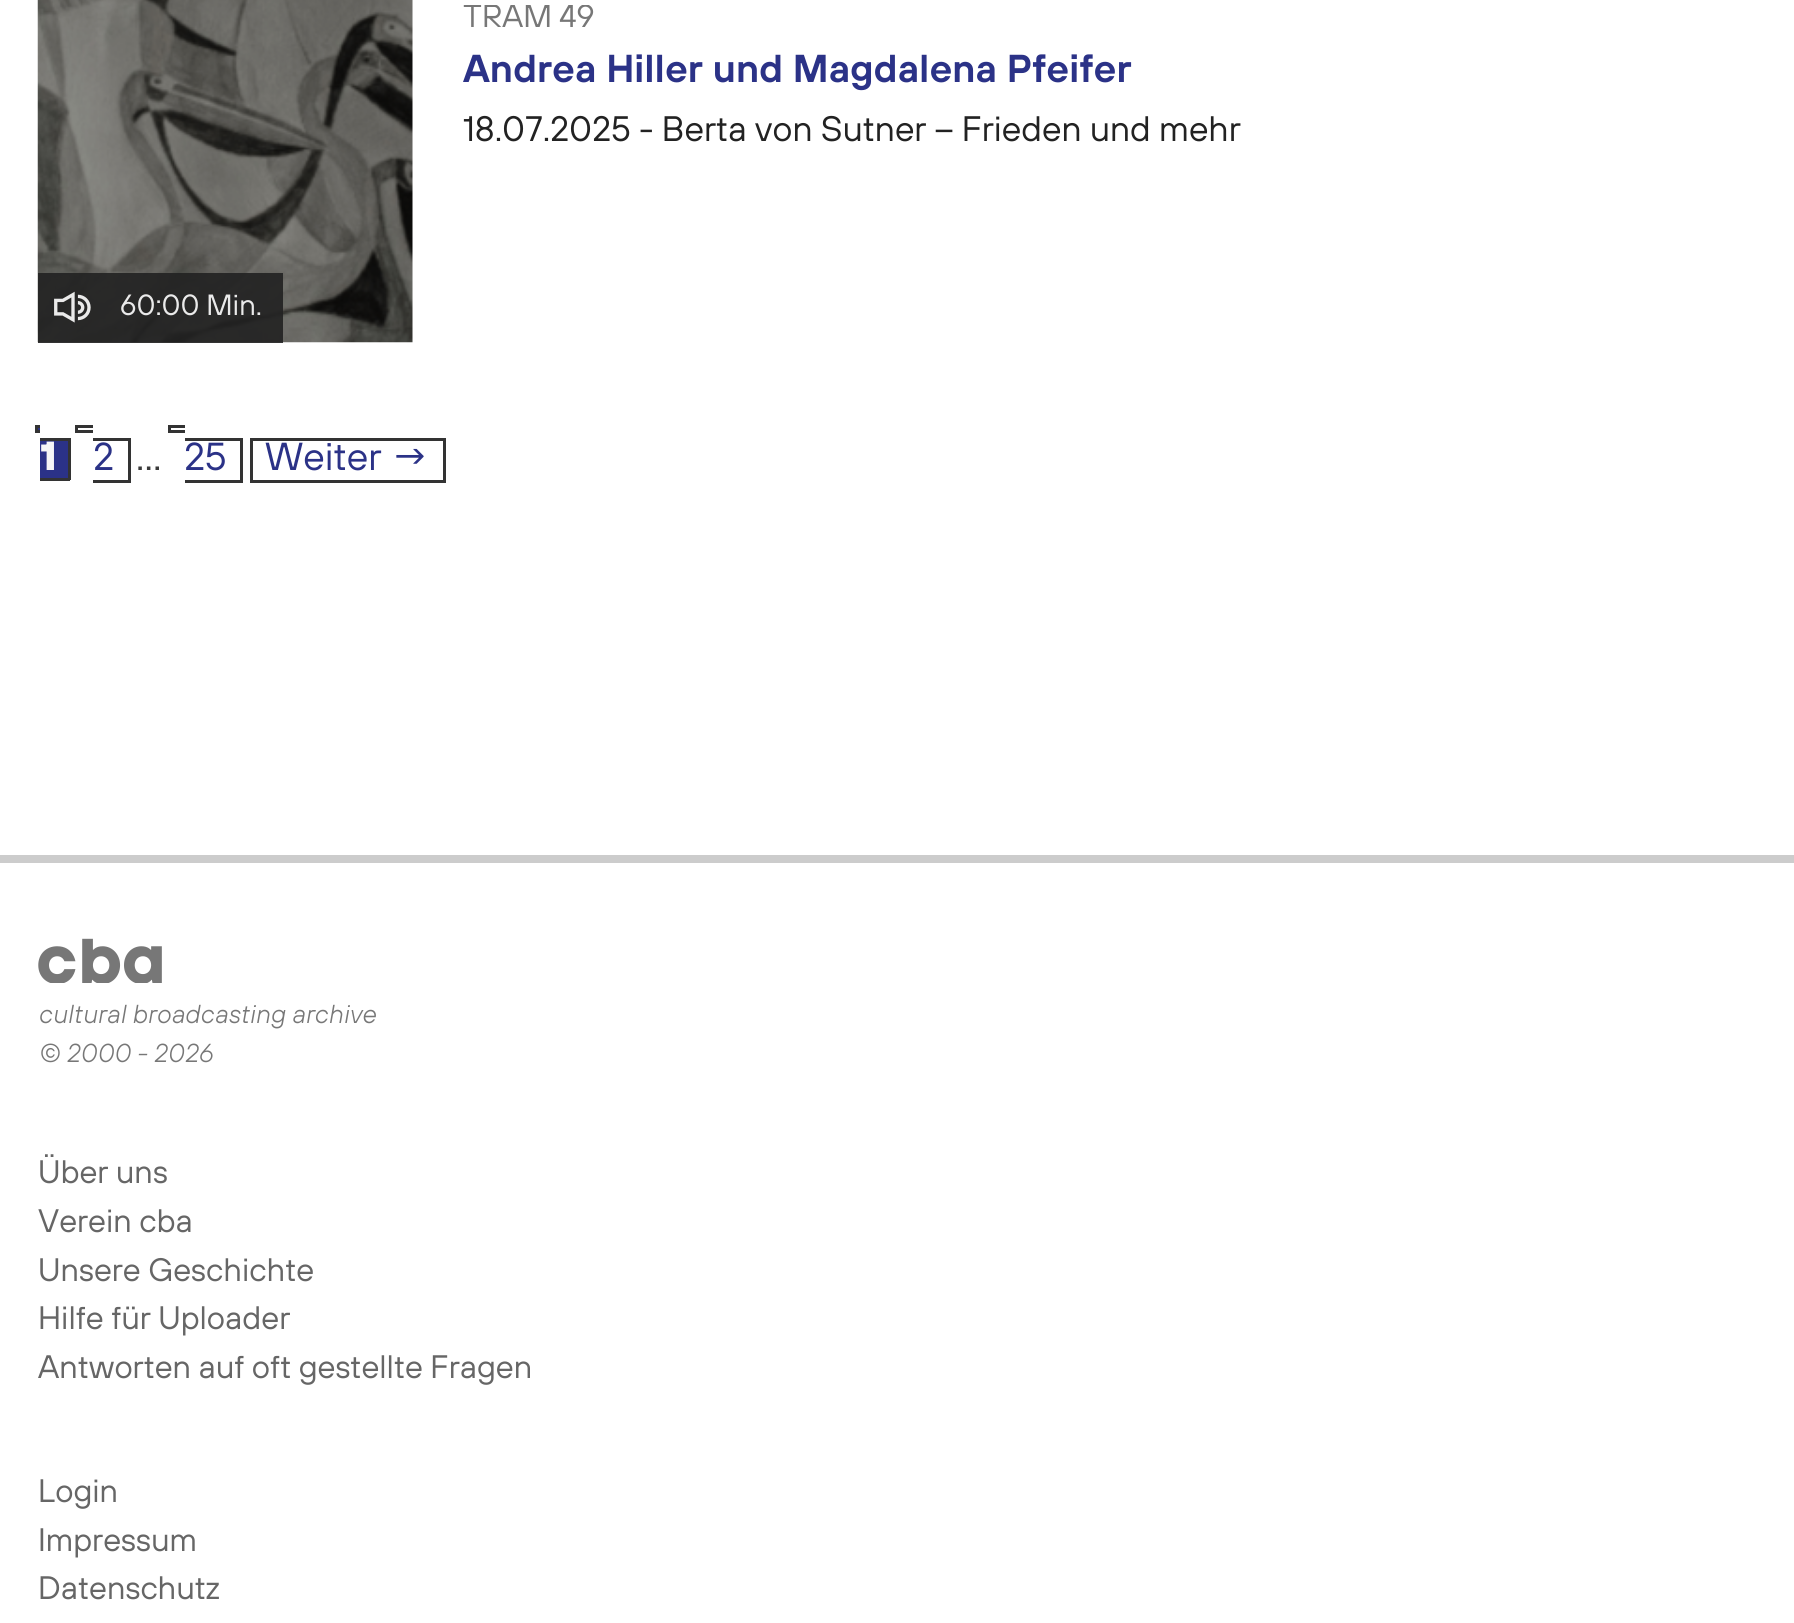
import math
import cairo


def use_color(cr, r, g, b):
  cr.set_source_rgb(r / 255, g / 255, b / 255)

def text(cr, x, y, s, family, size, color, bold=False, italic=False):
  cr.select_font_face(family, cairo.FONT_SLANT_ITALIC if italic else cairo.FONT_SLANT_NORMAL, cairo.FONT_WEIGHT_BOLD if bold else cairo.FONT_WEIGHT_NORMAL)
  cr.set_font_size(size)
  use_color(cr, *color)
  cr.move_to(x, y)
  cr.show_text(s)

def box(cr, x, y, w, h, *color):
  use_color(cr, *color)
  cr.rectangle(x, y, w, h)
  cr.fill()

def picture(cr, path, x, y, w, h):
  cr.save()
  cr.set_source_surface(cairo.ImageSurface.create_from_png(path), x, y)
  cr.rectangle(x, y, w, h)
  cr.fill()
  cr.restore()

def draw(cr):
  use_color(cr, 255, 255, 255)
  cr.paint()
  picture(cr, "img_01.png", 37, 0, 376, 343)
  cr.set_source_rgba(0.133, 0.133, 0.133, 0.9)
  cr.rectangle(38, 273, 70, 70)
  cr.fill()
  picture(cr, "img_02.png", 54, 291, 37, 32)
  cr.rectangle(108, 273, 175, 70)
  cr.fill()
  box(cr, 38, 425, 2, 8, 43, 50, 135)
  box(cr, 35, 425, 5, 3, 51, 51, 51)
  box(cr, 35, 430, 5, 3, 51, 51, 51)
  box(cr, 35, 425, 3, 8, 51, 51, 51)
  box(cr, 40, 441, 28, 37, 43, 50, 135)
  box(cr, 40, 438, 30, 3, 51, 51, 51)
  box(cr, 68, 438, 3, 42, 51, 51, 51)
  box(cr, 40, 478, 30, 3, 51, 51, 51)
  box(cr, 75, 425, 18, 3, 51, 51, 51)
  box(cr, 75, 430, 18, 3, 51, 51, 51)
  box(cr, 75, 425, 3, 8, 51, 51, 51)
  box(cr, 93, 438, 37, 3, 51, 51, 51)
  box(cr, 128, 438, 3, 45, 51, 51, 51)
  box(cr, 93, 480, 37, 3, 51, 51, 51)
  box(cr, 168, 425, 17, 3, 51, 51, 51)
  box(cr, 168, 430, 17, 3, 51, 51, 51)
  box(cr, 168, 425, 3, 8, 51, 51, 51)
  box(cr, 185, 438, 58, 3, 51, 51, 51)
  box(cr, 240, 438, 3, 45, 51, 51, 51)
  box(cr, 185, 480, 58, 3, 51, 51, 51)
  box(cr, 250, 438, 195, 3, 51, 51, 51)
  box(cr, 250, 480, 140, 3, 51, 51, 51)
  box(cr, 250, 438, 3, 45, 51, 51, 51)
  box(cr, 443, 438, 3, 45, 51, 51, 51)
  box(cr, 390, 480, 55, 3, 51, 51, 51)
  box(cr, 0, 855, 1794, 8, 204, 204, 204)
  picture(cr, "img_03.png", 38, 938, 124, 45)
  cr.save()
  cr.rectangle(463, 5, 1257, 33)
  cr.clip()
  text(cr, 463, 27, "TRAM 49", "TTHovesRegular", 32, (119, 119, 119))
  cr.restore()
  text(cr, 463, 82, "Andrea Hiller und Magdalena Pfeifer", "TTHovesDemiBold", 38.9, (43, 50, 135))
  text(cr, 463, 141, "18.07.2025 - Berta von Sutner – Frieden und mehr", "TTHovesRegular", 35.4, (34, 34, 34))
  text(cr, 120, 315, "60:00 Min.", "TTHovesRegular", 29.25, (234, 234, 234))
  text(cr, 40, 470, "1", "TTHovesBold", 39, (246, 246, 246), bold=True)
  text(cr, 93, 470, "2", "TTHovesRegular", 39, (43, 50, 135))
  text(cr, 136, 470, "…", "TTHovesRegular", 39, (58, 58, 58))
  text(cr, 184, 470, "25", "TTHovesRegular", 39, (43, 50, 135))
  text(cr, 265, 470, "Weiter →", "TTHovesRegular", 39, (43, 50, 135))
  text(cr, 38, 1023, "cultural broadcasting archive", "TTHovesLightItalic", 26, (119, 119, 119))
  text(cr, 38, 1062, "© 2000 - 2026", "TTHovesLightItalic", 26, (119, 119, 119))
  text(cr, 38, 1183, "Über uns", "TTHovesRegular", 32.5, (102, 102, 102))
  text(cr, 38, 1232, "Verein cba", "TTHovesRegular", 32.5, (102, 102, 102))
  text(cr, 38, 1281, "Unsere Geschichte", "TTHovesRegular", 32.5, (102, 102, 102))
  text(cr, 38, 1329, "Hilfe für Uploader", "TTHovesRegular", 32.5, (102, 102, 102))
  text(cr, 38, 1378, "Antworten auf oft gestellte Fragen", "TTHovesRegular", 32.5, (102, 102, 102))
  text(cr, 38, 1502, "Login", "TTHovesRegular", 32.5, (102, 102, 102))
  text(cr, 38, 1551, "Impressum", "TTHovesRegular", 32.5, (102, 102, 102))
  text(cr, 38, 1599, "Datenschutz", "TTHovesRegular", 32.5, (102, 102, 102))


surface = cairo.ImageSurface(cairo.FORMAT_RGB24, 1794, 1623)
cr = cairo.Context(surface)
options = cairo.FontOptions()
options.set_hint_metrics(cairo.HINT_METRICS_OFF)
options.set_hint_style(cairo.HINT_STYLE_NONE)
cr.set_font_options(options)
cr.set_miter_limit(4)
draw(cr)
surface.write_to_png("out.png")
